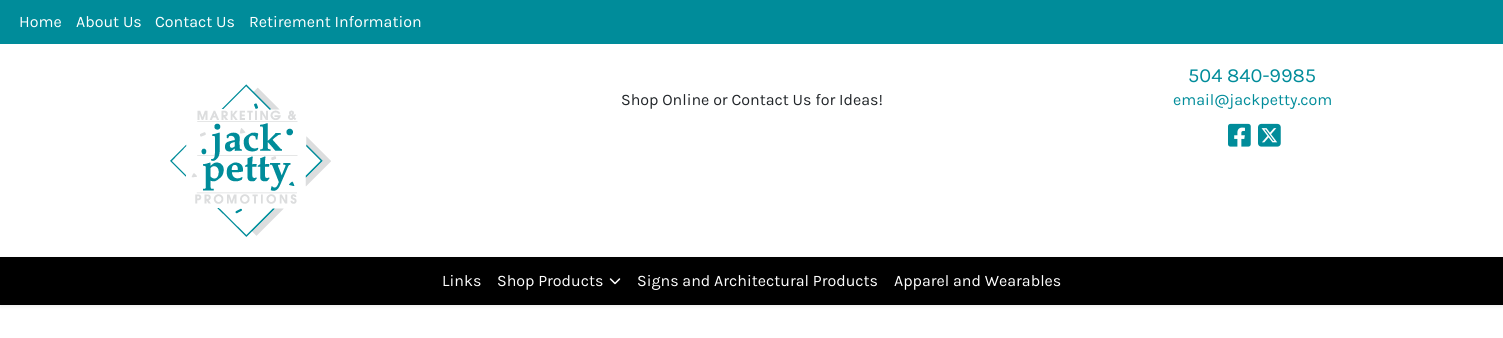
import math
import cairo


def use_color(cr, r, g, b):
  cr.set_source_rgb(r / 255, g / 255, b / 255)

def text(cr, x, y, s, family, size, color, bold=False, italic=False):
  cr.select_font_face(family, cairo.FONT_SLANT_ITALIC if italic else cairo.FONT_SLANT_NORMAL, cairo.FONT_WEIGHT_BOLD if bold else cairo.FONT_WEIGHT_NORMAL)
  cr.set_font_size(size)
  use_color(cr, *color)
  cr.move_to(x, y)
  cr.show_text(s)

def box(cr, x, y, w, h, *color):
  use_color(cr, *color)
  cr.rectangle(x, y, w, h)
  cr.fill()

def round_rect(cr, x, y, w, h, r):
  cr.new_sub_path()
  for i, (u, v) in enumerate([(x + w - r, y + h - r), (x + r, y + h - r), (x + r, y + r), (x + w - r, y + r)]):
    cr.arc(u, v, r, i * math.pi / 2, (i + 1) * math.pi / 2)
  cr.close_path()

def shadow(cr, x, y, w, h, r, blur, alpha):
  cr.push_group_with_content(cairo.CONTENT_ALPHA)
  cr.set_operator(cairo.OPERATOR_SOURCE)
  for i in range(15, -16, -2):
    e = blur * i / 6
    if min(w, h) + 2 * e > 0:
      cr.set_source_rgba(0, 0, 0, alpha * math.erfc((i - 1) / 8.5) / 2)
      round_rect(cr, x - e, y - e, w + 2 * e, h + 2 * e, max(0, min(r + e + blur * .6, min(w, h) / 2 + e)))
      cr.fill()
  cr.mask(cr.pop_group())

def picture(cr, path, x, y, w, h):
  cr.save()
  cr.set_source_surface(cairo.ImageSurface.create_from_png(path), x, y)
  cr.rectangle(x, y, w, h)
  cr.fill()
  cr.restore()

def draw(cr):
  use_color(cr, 255, 255, 255)
  cr.paint()
  box(cr, 0, 0, 1503, 44, 0, 140, 154)
  picture(cr, "img_01.png", 170, 84, 161, 153)
  picture(cr, "img_02.png", 1228, 123, 23, 24)
  picture(cr, "img_03.png", 1258, 123, 23, 24)
  use_color(cr, 0, 0, 0)
  shadow(cr, 0, 259, 1503, 48, 0, 2, 0.07)
  box(cr, 0, 257, 1503, 48, 0, 0, 0)
  picture(cr, "img_04.png", 609, 278, 12, 7)
  text(cr, 19, 27, "Home", "Karla", 16, (255, 255, 255))
  text(cr, 76, 27, "About Us", "Karla", 16, (255, 255, 255))
  text(cr, 155, 27, "Contact Us", "Karla", 16, (255, 255, 255))
  text(cr, 249, 27, "Retirement Information", "Karla", 16, (255, 255, 255))
  text(cr, 621, 105, "Shop Online or Contact Us for Ideas!", "Karla", 16, (33, 37, 41))
  text(cr, 1188, 82, "504 840-9985", "Karla", 20, (0, 140, 154))
  text(cr, 1173, 105, "email@jackpetty.com", "Karla", 16, (0, 140, 154))
  text(cr, 442, 286, "Links", "Karla", 16, (255, 255, 255))
  text(cr, 497, 286, "Shop Products", "Karla", 16, (255, 255, 255))
  text(cr, 637, 286, "Signs and Architectural Products", "Karla", 16, (255, 255, 255))
  text(cr, 894, 286, "Apparel and Wearables", "Karla", 16, (255, 255, 255))


surface = cairo.ImageSurface(cairo.FORMAT_RGB24, 1503, 338)
cr = cairo.Context(surface)
options = cairo.FontOptions()
options.set_hint_metrics(cairo.HINT_METRICS_OFF)
options.set_hint_style(cairo.HINT_STYLE_NONE)
cr.set_font_options(options)
cr.set_miter_limit(4)
draw(cr)
surface.write_to_png("out.png")
